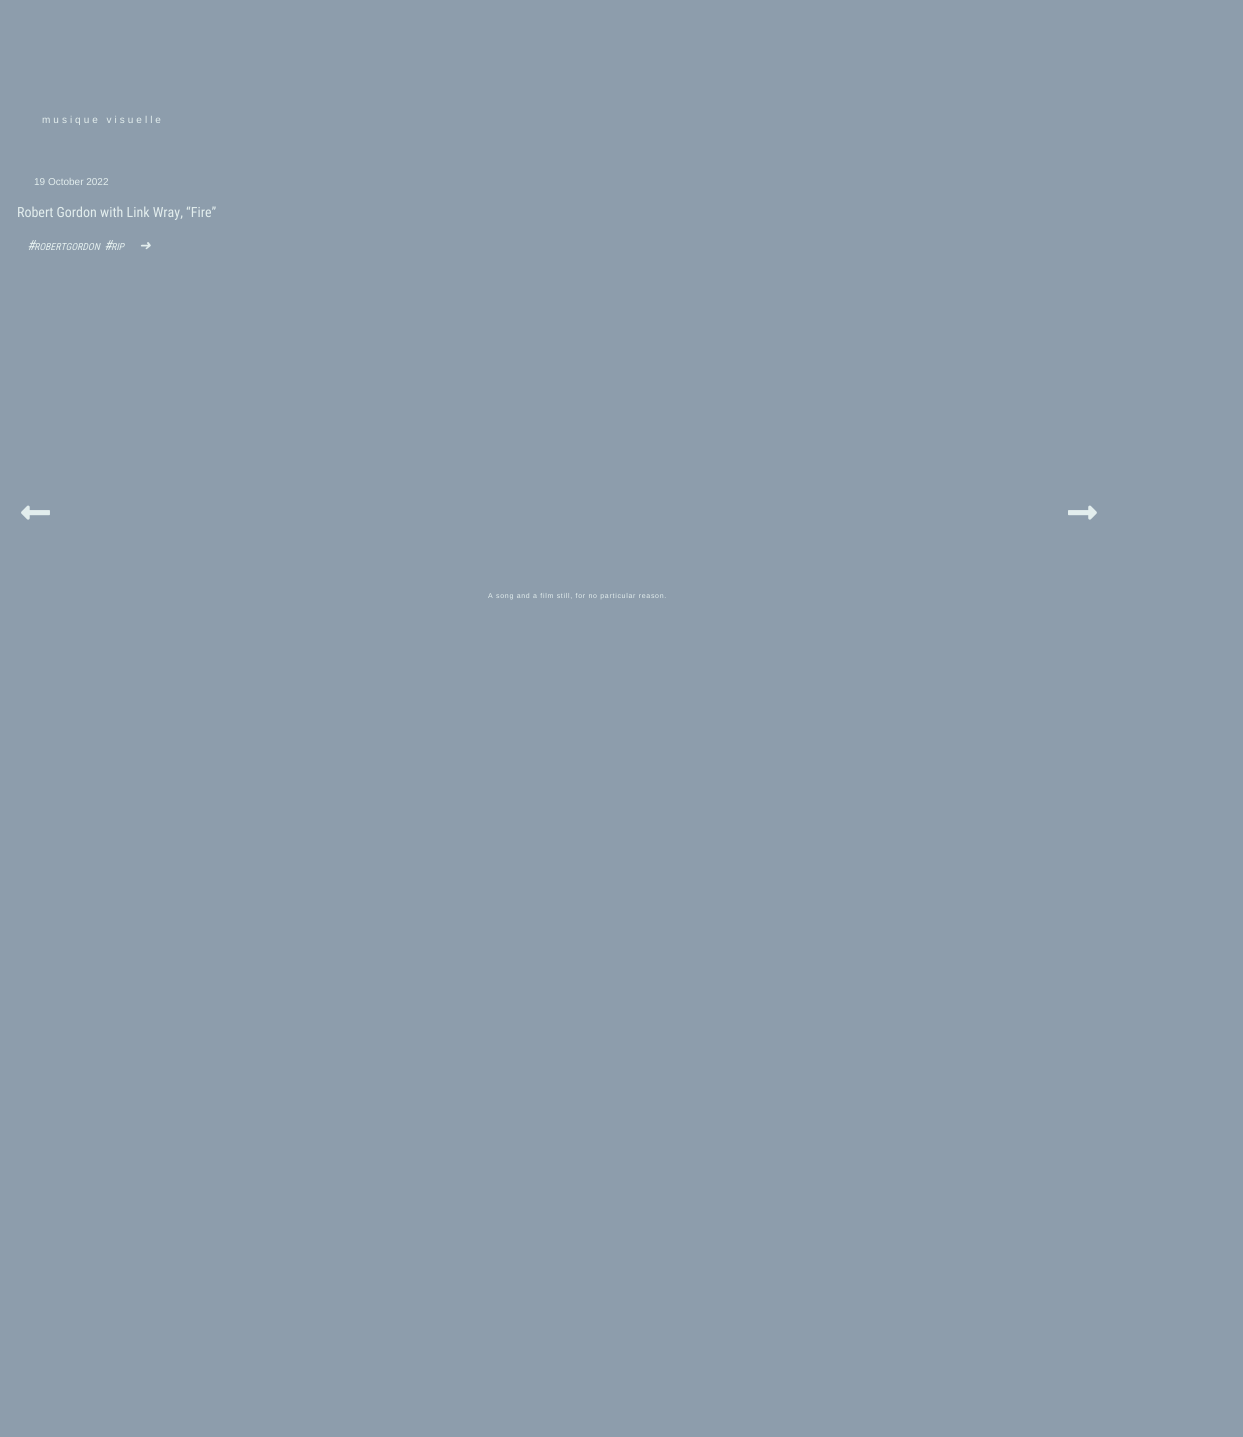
import math
import cairo


def use_color(cr, r, g, b):
  cr.set_source_rgb(r / 255, g / 255, b / 255)

def text(cr, x, y, s, family, size, color, bold=False, italic=False):
  cr.select_font_face(family, cairo.FONT_SLANT_ITALIC if italic else cairo.FONT_SLANT_NORMAL, cairo.FONT_WEIGHT_BOLD if bold else cairo.FONT_WEIGHT_NORMAL)
  cr.set_font_size(size)
  use_color(cr, *color)
  cr.move_to(x, y)
  cr.show_text(s)

def spaced_text(cr, x, y, s, letter, word):
  cr.move_to(x, y)
  for ch in s:
    cr.show_text(ch)
    cr.rel_move_to(letter + word * (ch == ' '), 0)

def picture(cr, path, x, y, w, h):
  cr.save()
  cr.set_source_surface(cairo.ImageSurface.create_from_png(path), x, y)
  cr.rectangle(x, y, w, h)
  cr.fill()
  cr.restore()

def draw(cr):
  use_color(cr, 141, 157, 172)
  cr.paint()
  picture(cr, "img_01.png", 21, 505, 29, 15)
  picture(cr, "img_02.png", 1068, 505, 29, 15)
  cr.select_font_face("Liberation Sans")
  cr.set_font_size(10)
  use_color(cr, 226, 237, 237)
  spaced_text(cr, 42, 123, "musique visuelle", 3, 0)
  text(cr, 34, 185, "19 October 2022", "Liberation Sans", 10, (226, 237, 237))
  text(cr, 17, 217, "Robert Gordon with Link Wray, “Fire”", "Roboto Condensed", 14, (226, 237, 237))
  text(cr, 27, 250, "#", "Roboto Condensed", 14, (226, 237, 237), italic=True)
  text(cr, 34, 250, "ROBERTGORDON", "Roboto Condensed", 9.75, (226, 237, 237), italic=True)
  text(cr, 104, 250, "#", "Roboto Condensed", 14, (226, 237, 237), italic=True)
  text(cr, 111, 250, "RIP", "Roboto Condensed", 9.75, (226, 237, 237), italic=True)
  text(cr, 139, 250, "➜", "DejaVu Sans", 14, (226, 237, 237), italic=True)
  cr.select_font_face("Liberation Sans")
  cr.set_font_size(7)
  spaced_text(cr, 488, 598, "A song and a film still, for no particular reason.", 0.7, 0)


surface = cairo.ImageSurface(cairo.FORMAT_RGB24, 1243, 1437)
cr = cairo.Context(surface)
options = cairo.FontOptions()
options.set_hint_metrics(cairo.HINT_METRICS_OFF)
options.set_hint_style(cairo.HINT_STYLE_NONE)
cr.set_font_options(options)
cr.set_miter_limit(4)
draw(cr)
surface.write_to_png("out.png")
